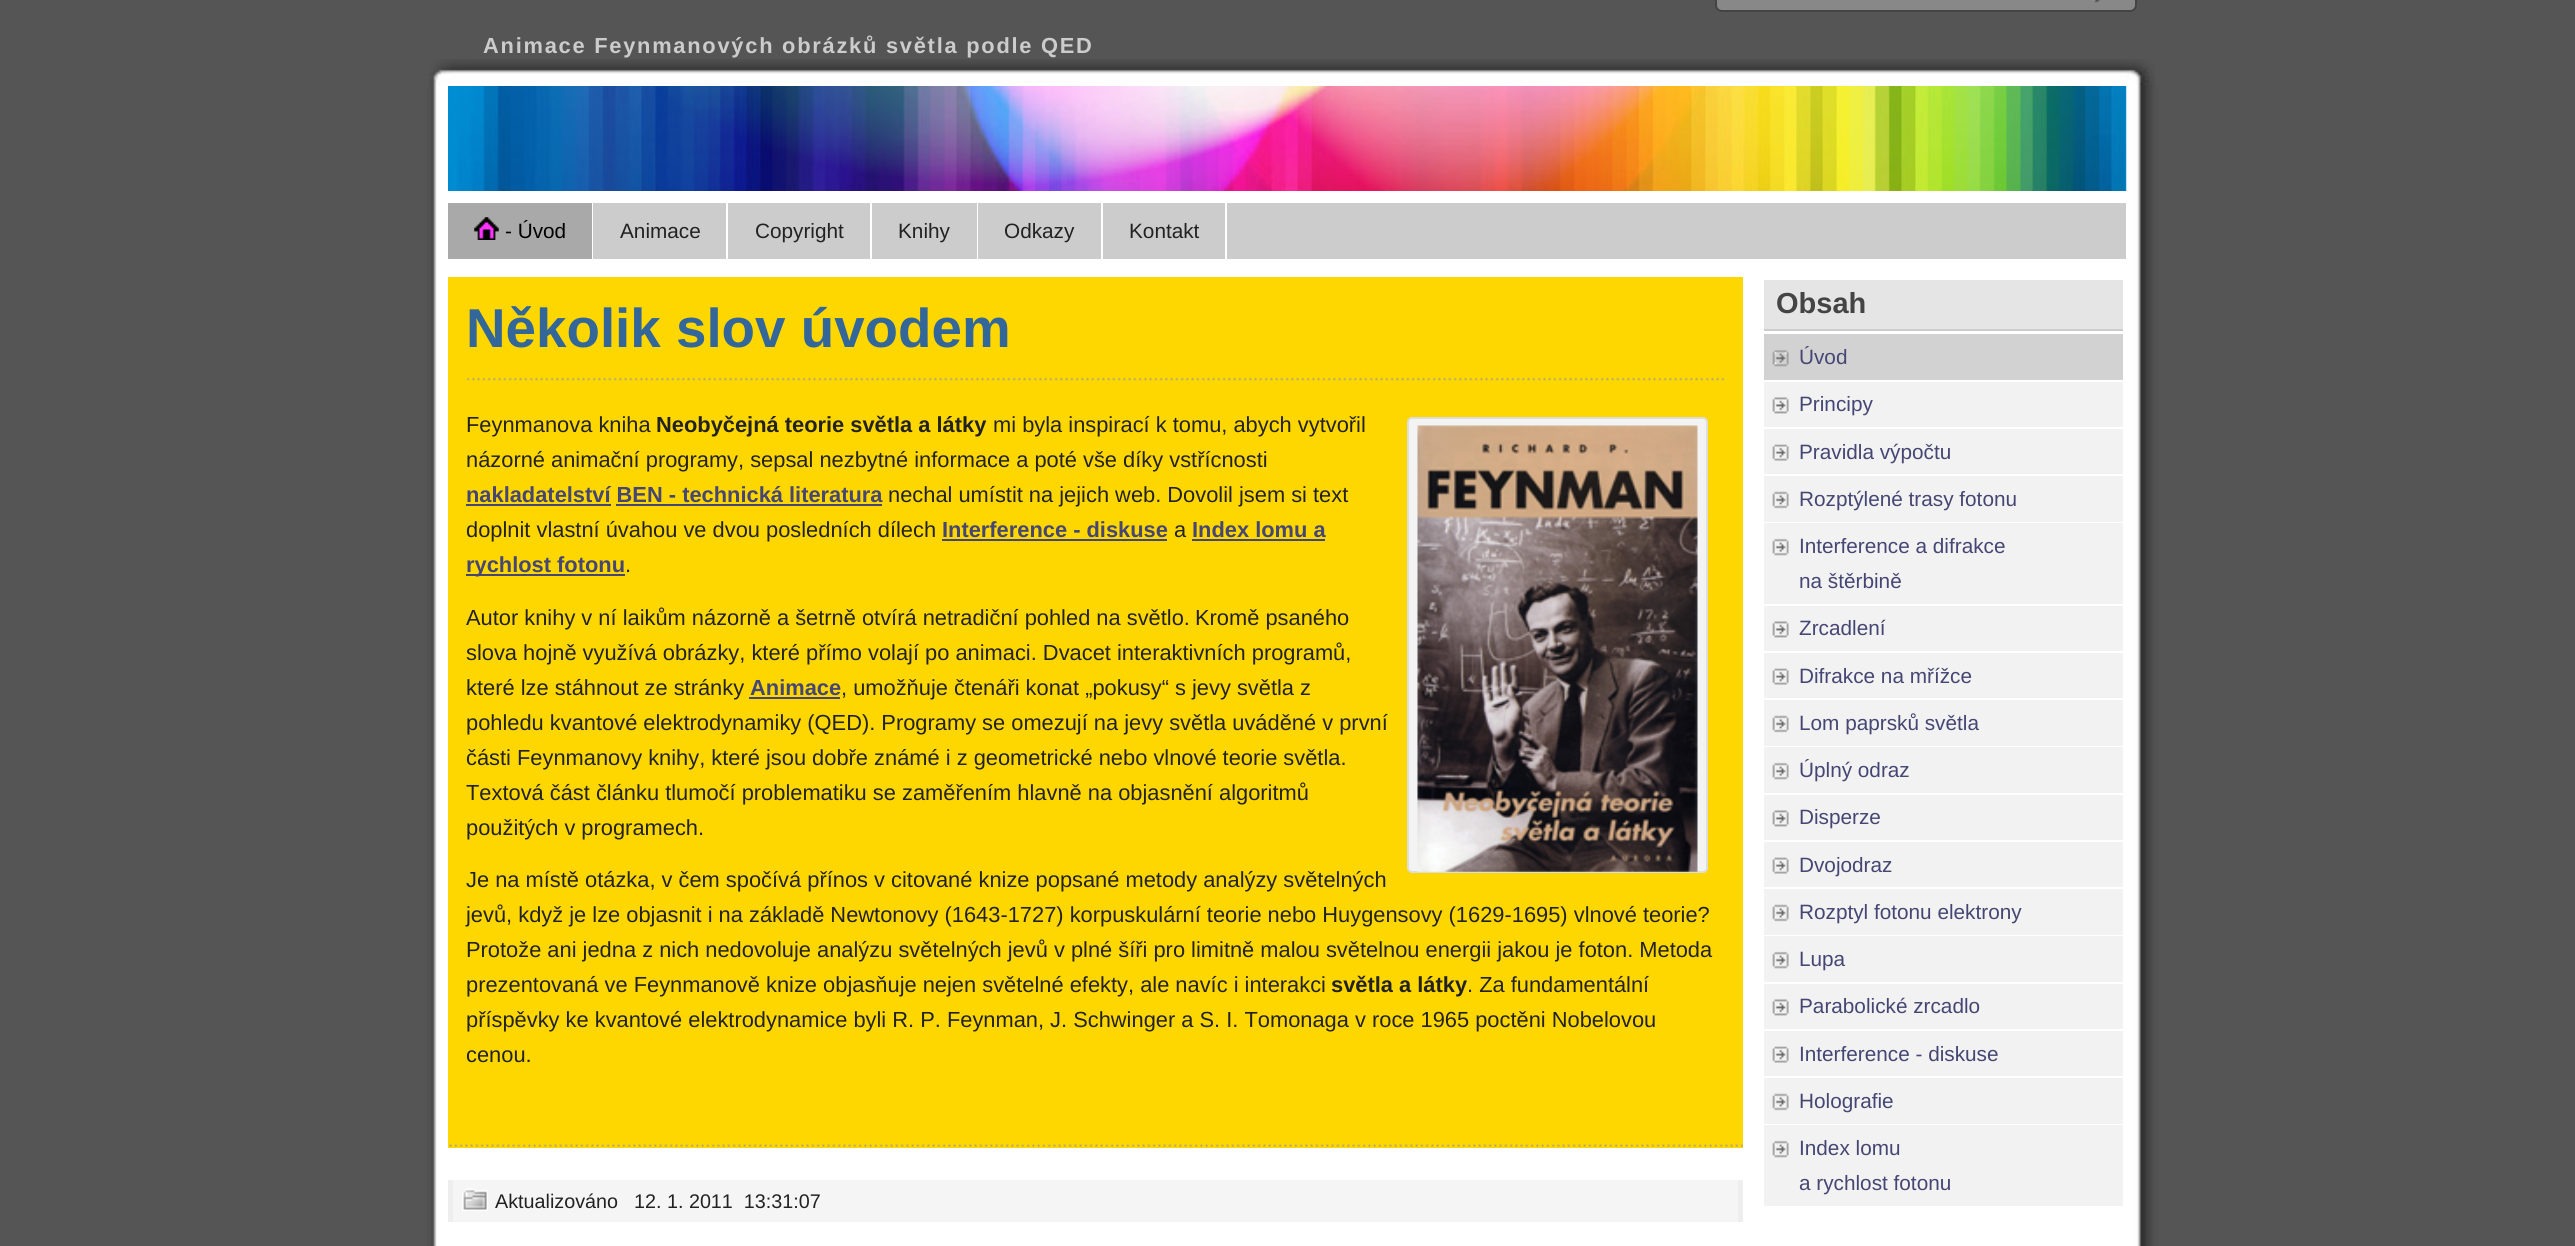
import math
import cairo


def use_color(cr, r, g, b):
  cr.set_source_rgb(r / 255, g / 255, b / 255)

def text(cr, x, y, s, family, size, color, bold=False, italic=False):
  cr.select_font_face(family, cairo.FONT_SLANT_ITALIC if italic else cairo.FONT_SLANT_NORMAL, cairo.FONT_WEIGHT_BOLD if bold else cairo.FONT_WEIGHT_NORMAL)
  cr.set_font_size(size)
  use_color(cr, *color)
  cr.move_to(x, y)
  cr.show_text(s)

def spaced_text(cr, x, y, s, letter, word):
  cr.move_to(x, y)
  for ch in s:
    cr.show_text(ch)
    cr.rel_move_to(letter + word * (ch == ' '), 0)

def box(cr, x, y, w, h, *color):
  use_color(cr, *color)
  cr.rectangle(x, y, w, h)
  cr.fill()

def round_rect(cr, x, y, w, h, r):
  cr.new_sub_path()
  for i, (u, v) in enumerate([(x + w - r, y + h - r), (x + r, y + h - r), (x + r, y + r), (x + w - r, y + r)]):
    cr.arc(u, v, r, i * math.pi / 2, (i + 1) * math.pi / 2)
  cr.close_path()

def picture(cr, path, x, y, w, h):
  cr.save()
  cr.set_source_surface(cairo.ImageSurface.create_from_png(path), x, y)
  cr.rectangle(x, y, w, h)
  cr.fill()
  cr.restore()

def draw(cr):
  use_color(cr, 85, 85, 85)
  cr.paint()
  picture(cr, "img_01.png", 413, 86, 1750, 1160)
  picture(cr, "img_02.png", 429, 59, 1726, 27)
  use_color(cr, 136, 136, 136)
  round_rect(cr, 1716, -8, 420, 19, 6)
  cr.fill_preserve()
  use_color(cr, 68, 68, 68)
  cr.stroke()
  picture(cr, "img_03.png", 2093, 0, 8, 3)
  picture(cr, "img_04.png", 448, 86, 1679, 105)
  box(cr, 728, 203, 1398, 56, 204, 204, 204)
  box(cr, 448, 203, 144, 56, 169, 169, 169)
  picture(cr, "img_05.png", 474, 217, 25, 23)
  box(cr, 593, 203, 133, 56, 204, 204, 204)
  box(cr, 870, 203, 2, 56, 255, 255, 255)
  box(cr, 977, 203, 1, 56, 255, 255, 255)
  box(cr, 1101, 203, 2, 56, 255, 255, 255)
  box(cr, 1225, 203, 2, 56, 255, 255, 255)
  box(cr, 448, 277, 1295, 871, 255, 215, 0)
  picture(cr, "img_06.png", 449, 1144, 1294, 3)
  picture(cr, "img_07.png", 466, 377, 1259, 4)
  box(cr, 466, 504, 145, 2, 69, 70, 115)
  box(cr, 616, 504, 266, 2, 69, 70, 115)
  box(cr, 942, 539, 225, 2, 69, 70, 115)
  box(cr, 1192, 539, 133, 2, 69, 70, 115)
  box(cr, 466, 574, 159, 2, 69, 70, 115)
  use_color(cr, 243, 243, 243)
  round_rect(cr, 1408, 418, 299, 454, 4)
  cr.fill_preserve()
  use_color(cr, 221, 221, 221)
  cr.stroke()
  picture(cr, "img_08.png", 1417, 425, 281, 447)
  box(cr, 749, 697, 91, 2, 69, 70, 115)
  box(cr, 453, 1180, 1285, 42, 245, 245, 245)
  box(cr, 1738, 1180, 5, 42, 238, 238, 238)
  box(cr, 448, 1180, 5, 42, 238, 238, 238)
  picture(cr, "img_09.png", 462, 1188, 26, 23)
  box(cr, 1764, 280, 359, 49, 229, 229, 229)
  box(cr, 1764, 329, 359, 2, 204, 204, 204)
  box(cr, 1764, 334, 359, 46, 210, 210, 210)
  picture(cr, "img_10.png", 1772, 350, 17, 17)
  box(cr, 1764, 382, 359, 45, 242, 242, 242)
  picture(cr, "img_11.png", 1772, 397, 17, 17)
  box(cr, 1764, 429, 359, 45, 242, 242, 242)
  picture(cr, "img_12.png", 1772, 444, 17, 17)
  box(cr, 1764, 476, 359, 46, 242, 242, 242)
  picture(cr, "img_13.png", 1772, 491, 17, 18)
  box(cr, 1764, 523, 359, 81, 242, 242, 242)
  picture(cr, "img_14.png", 1772, 538, 17, 18)
  box(cr, 1764, 606, 359, 45, 242, 242, 242)
  picture(cr, "img_11.png", 1772, 621, 17, 17)
  box(cr, 1764, 653, 359, 45, 242, 242, 242)
  picture(cr, "img_12.png", 1772, 668, 17, 17)
  box(cr, 1764, 700, 359, 46, 242, 242, 242)
  picture(cr, "img_13.png", 1772, 715, 17, 18)
  box(cr, 1764, 747, 359, 46, 242, 242, 242)
  picture(cr, "img_14.png", 1772, 762, 17, 18)
  box(cr, 1764, 795, 359, 45, 242, 242, 242)
  picture(cr, "img_11.png", 1772, 810, 17, 17)
  box(cr, 1764, 842, 359, 45, 242, 242, 242)
  picture(cr, "img_12.png", 1772, 857, 17, 17)
  box(cr, 1764, 889, 359, 46, 242, 242, 242)
  picture(cr, "img_13.png", 1772, 904, 17, 18)
  box(cr, 1764, 936, 359, 46, 242, 242, 242)
  picture(cr, "img_14.png", 1772, 951, 17, 18)
  box(cr, 1764, 984, 359, 45, 242, 242, 242)
  picture(cr, "img_11.png", 1772, 999, 17, 17)
  box(cr, 1764, 1031, 359, 45, 242, 242, 242)
  picture(cr, "img_12.png", 1772, 1046, 17, 17)
  box(cr, 1764, 1078, 359, 46, 242, 242, 242)
  picture(cr, "img_13.png", 1772, 1093, 17, 18)
  box(cr, 1764, 1125, 359, 81, 242, 242, 242)
  picture(cr, "img_14.png", 1772, 1140, 17, 18)
  cr.select_font_face("Liberation Sans", cairo.FONT_SLANT_NORMAL, cairo.FONT_WEIGHT_BOLD)
  cr.set_font_size(21.85)
  use_color(cr, 204, 204, 204)
  spaced_text(cr, 483, 53, "Animace Feynmanových obrázků světla podle QED", 1.75, 0)
  text(cr, 505, 238, "- Úvod", "Liberation Sans", 20.75, (0, 0, 0))
  text(cr, 620, 238, "Animace", "Liberation Sans", 20.75, (34, 34, 34))
  text(cr, 755, 238, "Copyright", "Liberation Sans", 20.75, (34, 34, 34))
  text(cr, 898, 238, "Knihy", "Liberation Sans", 20.75, (34, 34, 34))
  text(cr, 1004, 238, "Odkazy", "Liberation Sans", 20.75, (34, 34, 34))
  text(cr, 1129, 238, "Kontakt", "Liberation Sans", 20.75, (34, 34, 34))
  text(cr, 466, 347, "Několik slov úvodem", "Liberation Sans", 54.75, (51, 102, 153), bold=True)
  text(cr, 466, 432, "Feynmanova kniha", "Liberation Sans", 21.85, (34, 34, 34))
  text(cr, 656, 432, "Neobyčejná teorie světla a látky", "Liberation Sans", 21.85, (34, 34, 34), bold=True)
  text(cr, 993, 432, "mi byla inspirací k tomu, abych vytvořil", "Liberation Sans", 21.85, (34, 34, 34))
  text(cr, 466, 467, "názorné animační programy, sepsal nezbytné informace a poté vše díky vstřícnosti", "Liberation Sans", 21.85, (34, 34, 34))
  text(cr, 466, 502, "nakladatelství BEN - technická literatura", "Liberation Sans", 21.85, (69, 70, 115), bold=True)
  text(cr, 888, 502, "nechal umístit na jejich web. Dovolil jsem si text", "Liberation Sans", 21.85, (34, 34, 34))
  text(cr, 466, 537, "doplnit vlastní úvahou ve dvou posledních dílech", "Liberation Sans", 21.85, (34, 34, 34))
  text(cr, 942, 537, "Interference - diskuse", "Liberation Sans", 21.85, (69, 70, 115), bold=True)
  text(cr, 1174, 537, "a", "Liberation Sans", 21.85, (34, 34, 34))
  text(cr, 1192, 537, "Index lomu a", "Liberation Sans", 21.85, (69, 70, 115), bold=True)
  text(cr, 466, 572, "rychlost fotonu", "Liberation Sans", 21.85, (69, 70, 115), bold=True)
  text(cr, 625, 572, ".", "Liberation Sans", 21.85, (34, 34, 34))
  text(cr, 466, 625, "Autor knihy v ní laikům názorně a šetrně otvírá netradiční pohled na světlo.", "Liberation Sans", 21.85, (34, 34, 34))
  text(cr, 1195, 625, "Kromě psaného", "Liberation Sans", 21.85, (34, 34, 34))
  text(cr, 466, 660, "slova hojně využívá obrázky, které přímo volají po animaci. Dvacet interaktivních programů,", "Liberation Sans", 21.85, (34, 34, 34))
  text(cr, 466, 695, "které lze stáhnout ze stránky", "Liberation Sans", 21.85, (34, 34, 34))
  text(cr, 750, 695, "Animace", "Liberation Sans", 21.85, (69, 70, 115), bold=True)
  text(cr, 841, 695, ", umožňuje čtenáři konat „pokusy“ s jevy světla", "Liberation Sans", 21.85, (34, 34, 34))
  text(cr, 1300, 695, "z", "Liberation Sans", 21.85, (34, 34, 34))
  text(cr, 466, 730, "pohledu kvantové elektrodynamiky (QED). Programy se omezují na jevy světla uváděné v první", "Liberation Sans", 21.85, (34, 34, 34))
  text(cr, 466, 765, "části Feynmanovy knihy, které jsou dobře známé i z geometrické nebo vlnové teorie světla.", "Liberation Sans", 21.85, (34, 34, 34))
  text(cr, 466, 800, "Textová část článku tlumočí problematiku se zaměřením hlavně na objasnění algoritmů", "Liberation Sans", 21.85, (34, 34, 34))
  text(cr, 466, 835, "použitých v programech.", "Liberation Sans", 21.85, (34, 34, 34))
  text(cr, 466, 887, "Je na místě otázka, v čem spočívá přínos v citované knize popsané metody analýzy světelných", "Liberation Sans", 21.85, (34, 34, 34))
  text(cr, 466, 922, "jevů, když je lze objasnit i na základě Newtonovy (1643-1727) korpuskulární teorie nebo Huygensovy (1629-1695) vlnové teorie?", "Liberation Sans", 21.85, (34, 34, 34))
  text(cr, 466, 957, "Protože ani jedna z nich nedovoluje analýzu světelných jevů v plné šíři pro limitně malou světelnou energii jakou je foton. Metoda", "Liberation Sans", 21.85, (34, 34, 34))
  text(cr, 466, 992, "prezentovaná ve Feynmanově knize objasňuje nejen světelné efekty, ale navíc i interakci", "Liberation Sans", 21.85, (34, 34, 34))
  text(cr, 1331, 992, "světla a látky", "Liberation Sans", 21.85, (34, 34, 34), bold=True)
  text(cr, 1467, 992, ". Za fundamentální", "Liberation Sans", 21.85, (34, 34, 34))
  text(cr, 466, 1027, "příspěvky ke kvantové elektrodynamice byli R. P. Feynman, J. Schwinger a S. I. Tomonaga v roce 1965 poctěni Nobelovou", "Liberation Sans", 21.85, (34, 34, 34))
  text(cr, 466, 1062, "cenou.", "Liberation Sans", 21.85, (34, 34, 34))
  text(cr, 495, 1208, "Aktualizováno", "Liberation Sans", 19.75, (34, 34, 34))
  text(cr, 634, 1208, "12. 1. 2011  13:31:07", "Liberation Sans", 19.75, (34, 34, 34))
  text(cr, 1776, 313, "Obsah", "Liberation Sans", 29, (68, 68, 68), bold=True)
  text(cr, 1799, 364, "Úvod", "Liberation Sans", 20.75, (69, 70, 115))
  text(cr, 1799, 411, "Principy", "Liberation Sans", 20.75, (69, 70, 115))
  text(cr, 1799, 459, "Pravidla výpočtu", "Liberation Sans", 20.75, (69, 70, 115))
  text(cr, 1799, 506, "Rozptýlené trasy fotonu", "Liberation Sans", 20.75, (69, 70, 115))
  text(cr, 1799, 553, "Interference a difrakce", "Liberation Sans", 20.75, (69, 70, 115))
  text(cr, 1799, 588, "na štěrbině", "Liberation Sans", 20.75, (69, 70, 115))
  text(cr, 1799, 635, "Zrcadlení", "Liberation Sans", 20.75, (69, 70, 115))
  text(cr, 1799, 683, "Difrakce na mřížce", "Liberation Sans", 20.75, (69, 70, 115))
  text(cr, 1799, 730, "Lom paprsků světla", "Liberation Sans", 20.75, (69, 70, 115))
  text(cr, 1799, 777, "Úplný odraz", "Liberation Sans", 20.75, (69, 70, 115))
  text(cr, 1799, 824, "Disperze", "Liberation Sans", 20.75, (69, 70, 115))
  text(cr, 1799, 872, "Dvojodraz", "Liberation Sans", 20.75, (69, 70, 115))
  text(cr, 1799, 919, "Rozptyl fotonu elektrony", "Liberation Sans", 20.75, (69, 70, 115))
  text(cr, 1799, 966, "Lupa", "Liberation Sans", 20.75, (69, 70, 115))
  text(cr, 1799, 1013, "Parabolické zrcadlo", "Liberation Sans", 20.75, (69, 70, 115))
  text(cr, 1799, 1061, "Interference - diskuse", "Liberation Sans", 20.75, (69, 70, 115))
  text(cr, 1799, 1108, "Holografie", "Liberation Sans", 20.75, (69, 70, 115))
  text(cr, 1799, 1155, "Index lomu", "Liberation Sans", 20.75, (69, 70, 115))
  text(cr, 1799, 1190, "a rychlost fotonu", "Liberation Sans", 20.75, (69, 70, 115))


surface = cairo.ImageSurface(cairo.FORMAT_RGB24, 2575, 1246)
cr = cairo.Context(surface)
options = cairo.FontOptions()
options.set_hint_metrics(cairo.HINT_METRICS_OFF)
options.set_hint_style(cairo.HINT_STYLE_NONE)
cr.set_font_options(options)
cr.set_miter_limit(4)
draw(cr)
surface.write_to_png("out.png")
